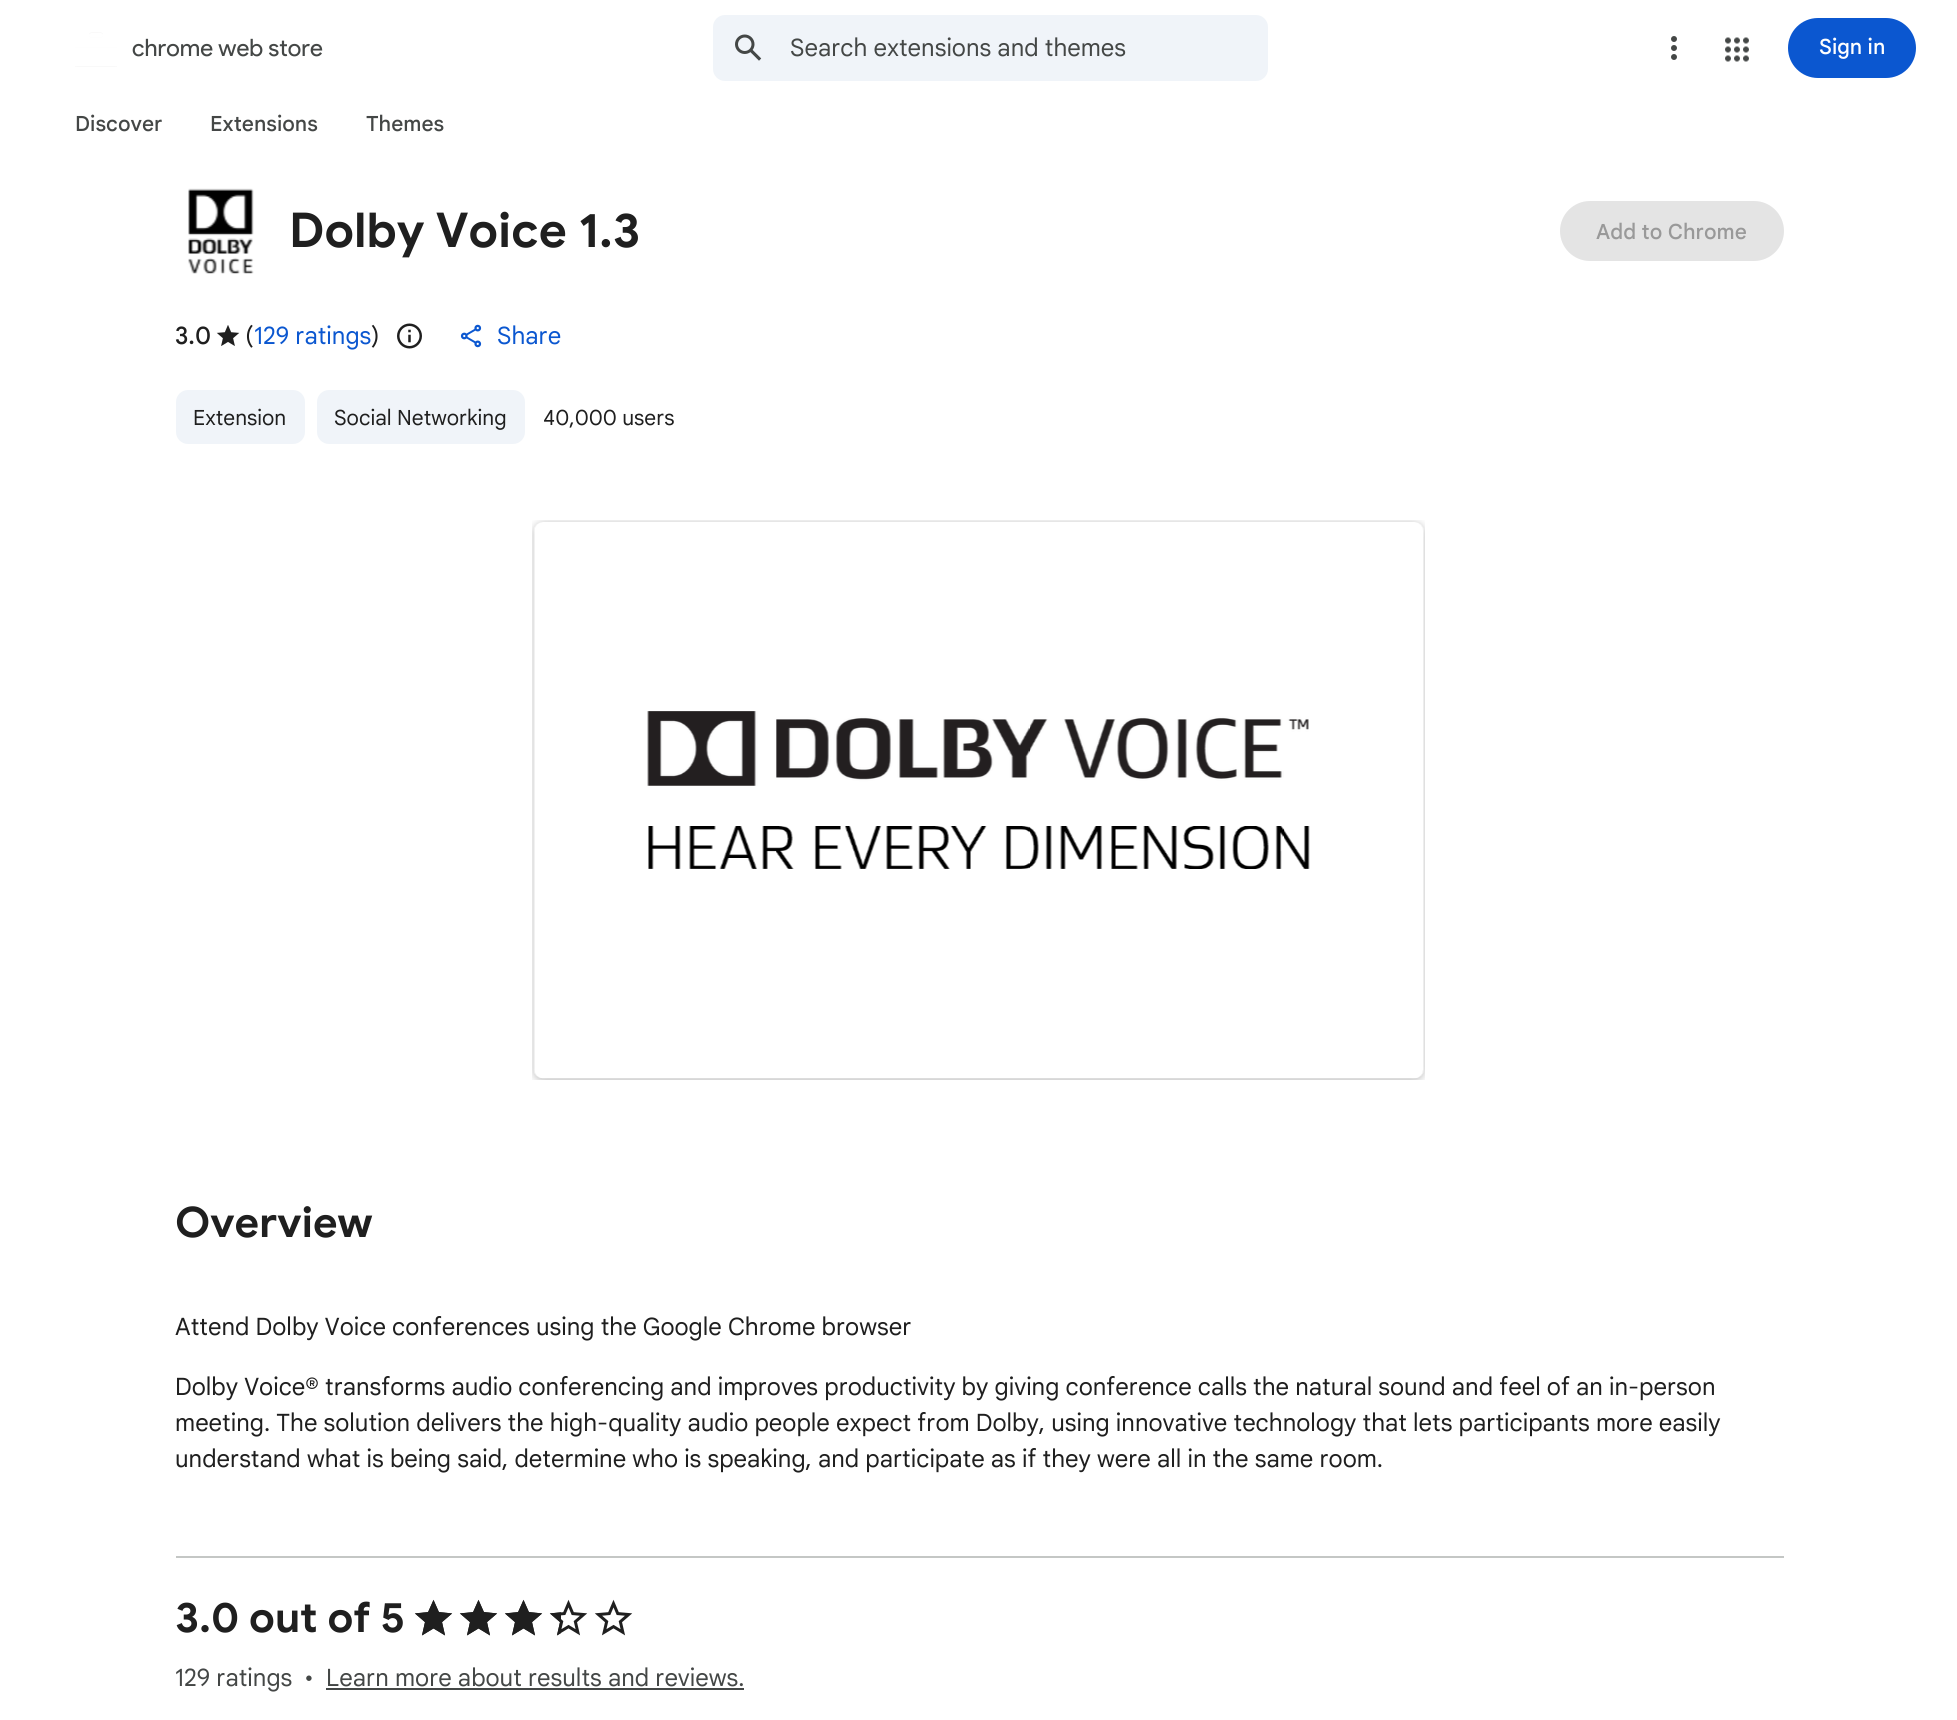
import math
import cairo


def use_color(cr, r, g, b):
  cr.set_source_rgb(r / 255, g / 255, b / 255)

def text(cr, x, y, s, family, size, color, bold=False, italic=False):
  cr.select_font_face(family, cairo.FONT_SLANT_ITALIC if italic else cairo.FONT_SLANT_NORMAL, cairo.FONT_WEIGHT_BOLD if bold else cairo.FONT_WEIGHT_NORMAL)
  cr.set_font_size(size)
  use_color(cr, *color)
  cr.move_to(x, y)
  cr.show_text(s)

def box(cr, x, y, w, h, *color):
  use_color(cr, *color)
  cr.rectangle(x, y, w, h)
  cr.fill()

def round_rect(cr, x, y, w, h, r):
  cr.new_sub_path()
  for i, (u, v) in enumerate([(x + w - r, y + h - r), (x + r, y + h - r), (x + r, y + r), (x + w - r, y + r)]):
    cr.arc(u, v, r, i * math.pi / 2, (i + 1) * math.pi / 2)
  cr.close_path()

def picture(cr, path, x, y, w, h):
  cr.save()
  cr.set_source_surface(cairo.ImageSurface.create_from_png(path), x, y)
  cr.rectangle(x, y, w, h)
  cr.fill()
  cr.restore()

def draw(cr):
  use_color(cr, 255, 255, 255)
  cr.paint()
  picture(cr, "img_01.png", 75, 32, 42, 35)
  use_color(cr, 240, 244, 249)
  round_rect(cr, 713, 15, 555, 66, 12)
  cr.fill()
  picture(cr, "img_02.png", 735, 34, 27, 27)
  picture(cr, "img_03.png", 1671, 36, 6, 24)
  picture(cr, "img_04.png", 1725, 37, 24, 25)
  use_color(cr, 11, 87, 208)
  round_rect(cr, 1788, 18, 128, 60, 30)
  cr.fill()
  picture(cr, "img_05.png", 188, 188, 66, 86)
  use_color(cr, 228, 228, 228)
  round_rect(cr, 1560, 201, 224, 60, 30)
  cr.fill()
  picture(cr, "img_06.png", 216, 325, 24, 21)
  picture(cr, "img_07.png", 397, 323, 25, 26)
  picture(cr, "img_08.png", 460, 324, 22, 24)
  use_color(cr, 240, 244, 249)
  round_rect(cr, 176, 390, 129, 54, 12)
  cr.fill()
  round_rect(cr, 317, 390, 208, 54, 12)
  cr.fill()
  picture(cr, "img_09.png", 532, 520, 893, 560)
  box(cr, 176, 1556, 1608, 2, 196, 199, 197)
  picture(cr, "img_10.png", 414, 1599, 39, 37)
  picture(cr, "img_10.png", 459, 1599, 39, 37)
  picture(cr, "img_10.png", 504, 1599, 39, 37)
  picture(cr, "img_10.png", 549, 1599, 39, 37)
  picture(cr, "img_10.png", 594, 1599, 39, 37)
  use_color(cr, 31, 31, 31)
  cr.new_path()
  cr.move_to(433.5, 1628.5)
  cr.line_to(445, 1635.5)
  cr.line_to(442, 1622)
  cr.line_to(452, 1613.5)
  cr.line_to(439, 1612)
  cr.line_to(433.5, 1600)
  cr.line_to(428, 1612)
  cr.line_to(415, 1613.5)
  cr.line_to(425, 1622)
  cr.line_to(422, 1635.5)
  cr.close_path()
  cr.fill()
  cr.new_path()
  cr.move_to(478.5, 1628.5)
  cr.line_to(490, 1635.5)
  cr.line_to(487, 1622)
  cr.line_to(497, 1613.5)
  cr.line_to(484, 1612)
  cr.line_to(478.5, 1600)
  cr.line_to(473, 1612)
  cr.line_to(460, 1613.5)
  cr.line_to(470, 1622)
  cr.line_to(467, 1635.5)
  cr.close_path()
  cr.fill()
  cr.new_path()
  cr.move_to(523.5, 1628.5)
  cr.line_to(535, 1635.5)
  cr.line_to(532, 1622)
  cr.line_to(542, 1613.5)
  cr.line_to(529, 1612)
  cr.line_to(523.5, 1600)
  cr.line_to(518, 1612)
  cr.line_to(505, 1613.5)
  cr.line_to(515, 1622)
  cr.line_to(512, 1635.5)
  cr.close_path()
  cr.fill()
  cr.save()
  cr.rectangle(546, 1596, 15, 45)
  cr.clip()
  cr.new_path()
  cr.move_to(568.5, 1628.5)
  cr.line_to(580, 1635.5)
  cr.line_to(577, 1622)
  cr.line_to(587, 1613.5)
  cr.line_to(574, 1612)
  cr.line_to(568.5, 1600)
  cr.line_to(563, 1612)
  cr.line_to(550, 1613.5)
  cr.line_to(560, 1622)
  cr.line_to(557, 1635.5)
  cr.close_path()
  cr.fill()
  cr.restore()
  box(cr, 326, 1688, 418, 2, 68, 71, 70)
  text(cr, 132, 56, "chrome web store", "Product Sans", 24, (68, 71, 70))
  text(cr, 790, 56, "Search extensions and themes", "Google Sans", 24, (68, 71, 70))
  text(cr, 1819, 54, "Sign in", "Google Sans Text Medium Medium", 21, (255, 255, 255))
  text(cr, 75, 131, "Discover", "Google Sans Text Medium Medium", 21, (68, 71, 70))
  text(cr, 210, 131, "Extensions", "Google Sans Text Medium Medium", 21, (68, 71, 70))
  text(cr, 366, 131, "Themes", "Google Sans Text Medium Medium", 21, (68, 71, 70))
  text(cr, 289, 247, "Dolby Voice 1.3", "Google Sans", 48, (31, 31, 31), bold=True)
  text(cr, 1596, 239, "Add to Chrome", "Google Sans Text Medium Medium", 21, (153, 153, 153))
  text(cr, 175, 344, "3.0", "Google Sans Medium", 24, (31, 31, 31))
  text(cr, 245, 344, "(", "Google Sans", 24, (31, 31, 31))
  text(cr, 254, 344, "129 ratings", "Google Sans", 24, (11, 87, 208))
  text(cr, 371, 344, ")", "Google Sans", 24, (31, 31, 31))
  text(cr, 497, 344, "Share", "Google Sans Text", 24, (11, 87, 208))
  text(cr, 193, 425, "Extension", "Google Sans", 21, (31, 31, 31))
  text(cr, 334, 425, "Social Networking", "Google Sans", 21, (31, 31, 31))
  text(cr, 543, 425, "40,000 users", "Google Sans", 21, (31, 31, 31))
  text(cr, 175, 1237, "Overview", "Google Sans", 42, (31, 31, 31), bold=True)
  text(cr, 175, 1335, "Attend Dolby Voice conferences using the Google Chrome browser", "Google Sans", 24, (31, 31, 31))
  text(cr, 175, 1395, "Dolby Voice® transforms audio conferencing and improves productivity by giving conference calls the natural sound and feel of an in-person", "Google Sans", 24, (31, 31, 31))
  text(cr, 175, 1431, "meeting. The solution delivers the high-quality audio people expect from Dolby, using innovative technology that lets participants more easily", "Google Sans", 24, (31, 31, 31))
  text(cr, 175, 1467, "understand what is being said, determine who is speaking, and participate as if they were all in the same room.", "Google Sans", 24, (31, 31, 31))
  text(cr, 175, 1632, "3.0 out of 5", "Google Sans", 42, (31, 31, 31), bold=True)
  text(cr, 175, 1686, "129 ratings", "Google Sans", 24, (68, 71, 70))
  text(cr, 304, 1686, "•", "Google Sans", 24, (68, 71, 70))
  text(cr, 326, 1686, "Learn more about results and reviews.", "Google Sans", 24, (68, 71, 70))


surface = cairo.ImageSurface(cairo.FORMAT_RGB24, 1957, 1720)
cr = cairo.Context(surface)
options = cairo.FontOptions()
options.set_hint_metrics(cairo.HINT_METRICS_OFF)
options.set_hint_style(cairo.HINT_STYLE_NONE)
cr.set_font_options(options)
cr.set_miter_limit(4)
draw(cr)
surface.write_to_png("out.png")
